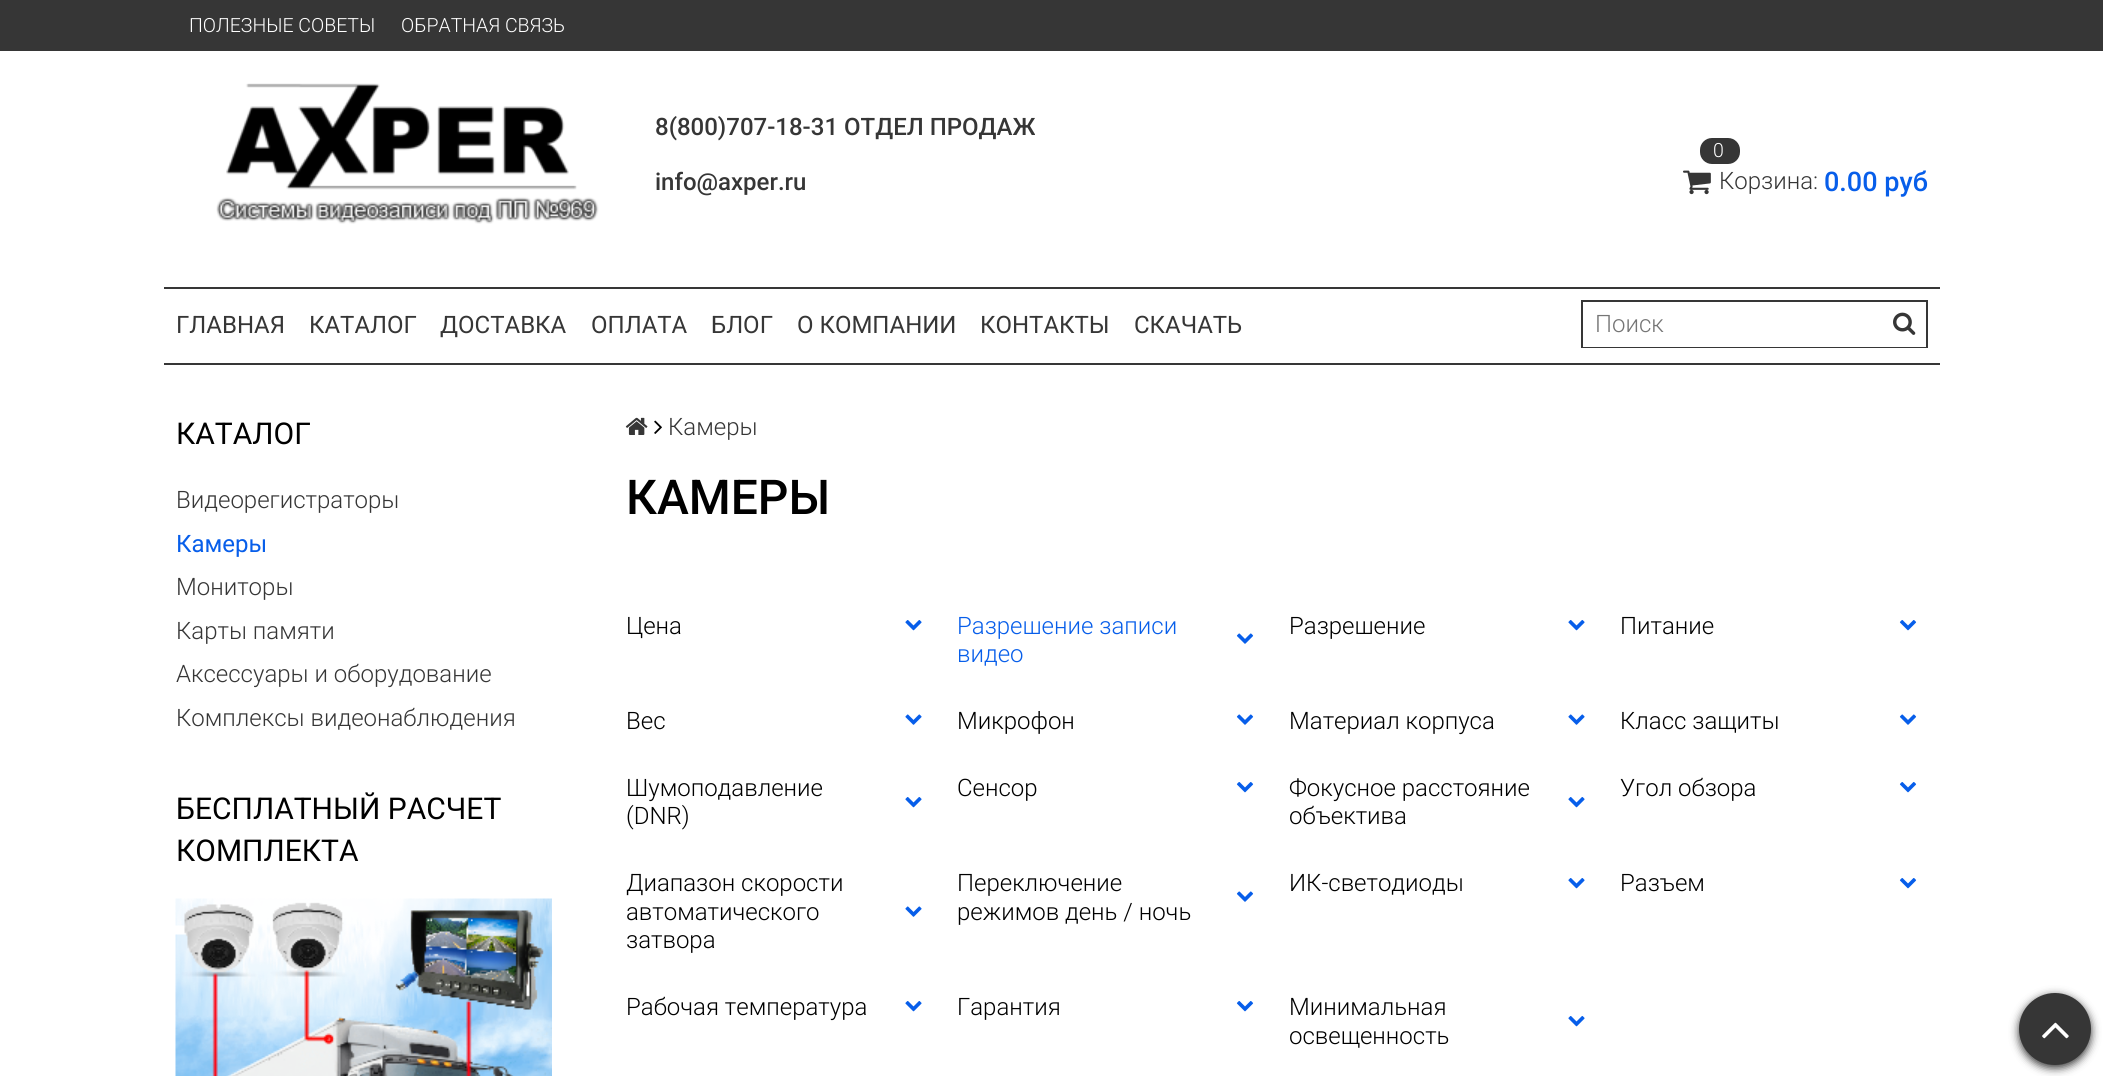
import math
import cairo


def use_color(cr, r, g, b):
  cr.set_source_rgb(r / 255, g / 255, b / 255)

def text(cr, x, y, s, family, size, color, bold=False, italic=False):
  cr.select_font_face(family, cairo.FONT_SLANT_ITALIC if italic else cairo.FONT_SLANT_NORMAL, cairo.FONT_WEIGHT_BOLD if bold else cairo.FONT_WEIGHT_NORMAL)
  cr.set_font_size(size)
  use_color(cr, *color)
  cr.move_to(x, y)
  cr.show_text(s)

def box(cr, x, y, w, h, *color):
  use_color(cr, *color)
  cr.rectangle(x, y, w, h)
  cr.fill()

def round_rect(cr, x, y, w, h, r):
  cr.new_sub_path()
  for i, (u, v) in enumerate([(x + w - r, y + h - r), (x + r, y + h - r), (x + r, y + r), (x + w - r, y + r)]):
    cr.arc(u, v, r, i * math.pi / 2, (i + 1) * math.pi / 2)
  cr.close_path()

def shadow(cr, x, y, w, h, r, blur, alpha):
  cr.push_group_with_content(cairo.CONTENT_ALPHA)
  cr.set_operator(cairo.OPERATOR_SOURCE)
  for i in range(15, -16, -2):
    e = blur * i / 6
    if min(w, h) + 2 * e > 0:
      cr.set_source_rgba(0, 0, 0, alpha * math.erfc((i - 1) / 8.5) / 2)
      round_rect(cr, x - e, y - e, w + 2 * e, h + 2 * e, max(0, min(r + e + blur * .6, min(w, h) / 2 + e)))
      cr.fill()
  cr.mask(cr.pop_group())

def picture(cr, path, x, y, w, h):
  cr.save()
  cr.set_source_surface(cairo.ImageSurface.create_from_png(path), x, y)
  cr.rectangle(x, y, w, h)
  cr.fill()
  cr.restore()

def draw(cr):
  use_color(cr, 255, 255, 255)
  cr.paint()
  box(cr, 0, 0, 2103, 51, 54, 54, 54)
  picture(cr, "img_01.png", 216, 83, 383, 141)
  round_rect(cr, 1700, 138, 40, 26, 12)
  cr.fill()
  picture(cr, "img_02.png", 1683, 170, 28, 25)
  box(cr, 164, 287, 1776, 2, 54, 54, 54)
  box(cr, 164, 363, 1776, 2, 54, 54, 54)
  cr.rectangle(1582, 301, 345, 46)
  cr.stroke()
  box(cr, 1583, 346, 343, 1, 255, 255, 255)
  picture(cr, "img_03.png", 1893, 312, 23, 23)
  picture(cr, "img_04.png", 175, 898, 377, 178)
  picture(cr, "img_05.png", 625, 417, 23, 18)
  picture(cr, "img_06.png", 654, 420, 8, 14)
  picture(cr, "img_07.png", 905, 620, 17, 11)
  picture(cr, "img_08.png", 1236, 633, 18, 11)
  picture(cr, "img_07.png", 1568, 620, 17, 11)
  picture(cr, "img_09.png", 1899, 620, 18, 11)
  picture(cr, "img_10.png", 905, 714, 17, 11)
  picture(cr, "img_08.png", 1236, 714, 18, 11)
  picture(cr, "img_10.png", 1568, 714, 17, 11)
  picture(cr, "img_08.png", 1899, 714, 18, 11)
  picture(cr, "img_07.png", 905, 797, 17, 11)
  picture(cr, "img_09.png", 1236, 782, 18, 11)
  picture(cr, "img_07.png", 1568, 797, 17, 11)
  picture(cr, "img_09.png", 1899, 782, 18, 11)
  picture(cr, "img_10.png", 905, 906, 17, 11)
  picture(cr, "img_08.png", 1236, 891, 18, 11)
  picture(cr, "img_07.png", 1568, 878, 17, 11)
  picture(cr, "img_09.png", 1899, 878, 18, 11)
  picture(cr, "img_07.png", 905, 1001, 17, 11)
  picture(cr, "img_09.png", 1236, 1001, 18, 11)
  picture(cr, "img_07.png", 1568, 1016, 17, 11)
  use_color(cr, 51, 51, 51)
  shadow(cr, 2019, 996, 72, 72, 36, 4.5, 1)
  use_color(cr, 54, 54, 54)
  cr.arc(2055, 1029, 34.5, 0, 2 * math.pi)
  cr.fill_preserve()
  cr.set_line_width(3)
  cr.stroke()
  picture(cr, "img_11.png", 2042, 1022, 27, 17)
  text(cr, 189, 32, "ПОЛЕЗНЫЕ СОВЕТЫ", "Roboto Light", 19.5, (255, 255, 255))
  text(cr, 401, 32, "ОБРАТНАЯ СВЯЗЬ", "Roboto Light", 19.5, (255, 255, 255))
  text(cr, 655, 135, "8(800)707-18-31 ОТДЕЛ ПРОДАЖ", "Roboto Medium", 24, (54, 54, 54))
  text(cr, 655, 190, "info@axper.ru", "Roboto Medium", 24, (54, 54, 54))
  text(cr, 1713, 157, "0", "Roboto Light", 19.5, (255, 255, 255))
  text(cr, 1719, 189, "Корзина:", "Roboto Light", 24, (54, 54, 54))
  text(cr, 1824, 191, "0.00 руб", "Roboto Medium", 27, (7, 94, 234))
  text(cr, 176, 333, "ГЛАВНАЯ", "Roboto", 24, (54, 54, 54))
  text(cr, 309, 333, "КАТАЛОГ", "Roboto", 24, (54, 54, 54))
  text(cr, 440, 333, "ДОСТАВКА", "Roboto", 24, (54, 54, 54))
  text(cr, 591, 333, "ОПЛАТА", "Roboto", 24, (54, 54, 54))
  text(cr, 711, 333, "БЛОГ", "Roboto", 24, (54, 54, 54))
  text(cr, 797, 333, "О КОМПАНИИ", "Roboto", 24, (54, 54, 54))
  text(cr, 980, 333, "КОНТАКТЫ", "Roboto", 24, (54, 54, 54))
  text(cr, 1134, 333, "СКАЧАТЬ", "Roboto", 24, (54, 54, 54))
  text(cr, 1595, 332, "Поиск", "Roboto Light", 24, (117, 117, 117))
  text(cr, 176, 444, "КАТАЛОГ", "Roboto", 30, (0, 0, 0))
  text(cr, 176, 508, "Видеорегистраторы", "Roboto Light", 24, (54, 54, 54))
  text(cr, 176, 552, "Камеры", "Roboto", 24, (7, 94, 234))
  text(cr, 176, 595, "Мониторы", "Roboto Light", 24, (54, 54, 54))
  text(cr, 176, 639, "Карты памяти", "Roboto Light", 24, (54, 54, 54))
  text(cr, 176, 682, "Аксессуары и оборудование", "Roboto Light", 24, (54, 54, 54))
  text(cr, 176, 726, "Комплексы видеонаблюдения", "Roboto Light", 24, (54, 54, 54))
  text(cr, 176, 819, "БЕСПЛАТНЫЙ РАСЧЕТ", "Roboto", 30, (0, 0, 0))
  text(cr, 176, 861, "КОМПЛЕКТА", "Roboto", 30, (0, 0, 0))
  text(cr, 668, 435, "Камеры", "Roboto Light", 24, (54, 54, 54))
  text(cr, 626, 514, "КАМЕРЫ", "Roboto Medium", 48, (0, 0, 0))
  text(cr, 626, 634, "Цена", "Roboto Light", 24, (0, 0, 0))
  text(cr, 957, 634, "Разрешение записи", "Roboto Light", 24, (7, 94, 234))
  text(cr, 957, 662, "видео", "Roboto Light", 24, (7, 94, 234))
  text(cr, 1289, 634, "Разрешение", "Roboto Light", 24, (0, 0, 0))
  text(cr, 1620, 634, "Питание", "Roboto Light", 24, (0, 0, 0))
  text(cr, 626, 729, "Вес", "Roboto Light", 24, (0, 0, 0))
  text(cr, 957, 729, "Микрофон", "Roboto Light", 24, (0, 0, 0))
  text(cr, 1289, 729, "Материал корпуса", "Roboto Light", 24, (0, 0, 0))
  text(cr, 1620, 729, "Класс защиты", "Roboto Light", 24, (0, 0, 0))
  text(cr, 626, 796, "Шумоподавление", "Roboto Light", 24, (0, 0, 0))
  text(cr, 626, 824, "(DNR)", "Roboto Light", 24, (0, 0, 0))
  text(cr, 957, 796, "Сенсор", "Roboto Light", 24, (0, 0, 0))
  text(cr, 1289, 796, "Фокусное расстояние", "Roboto Light", 24, (0, 0, 0))
  text(cr, 1289, 824, "объектива", "Roboto Light", 24, (0, 0, 0))
  text(cr, 1620, 796, "Угол обзора", "Roboto Light", 24, (0, 0, 0))
  text(cr, 626, 891, "Диапазон скорости", "Roboto Light", 24, (0, 0, 0))
  text(cr, 626, 920, "автоматического", "Roboto Light", 24, (0, 0, 0))
  text(cr, 626, 948, "затвора", "Roboto Light", 24, (0, 0, 0))
  text(cr, 957, 891, "Переключение", "Roboto Light", 24, (0, 0, 0))
  text(cr, 957, 920, "режимов день / ночь", "Roboto Light", 24, (0, 0, 0))
  text(cr, 1289, 891, "ИК-светодиоды", "Roboto Light", 24, (0, 0, 0))
  text(cr, 1620, 891, "Разъем", "Roboto Light", 24, (0, 0, 0))
  text(cr, 626, 1015, "Рабочая температура", "Roboto Light", 24, (0, 0, 0))
  text(cr, 957, 1015, "Гарантия", "Roboto Light", 24, (0, 0, 0))
  text(cr, 1289, 1015, "Минимальная", "Roboto Light", 24, (0, 0, 0))
  text(cr, 1289, 1044, "освещенность", "Roboto Light", 24, (0, 0, 0))


surface = cairo.ImageSurface(cairo.FORMAT_RGB24, 2103, 1076)
cr = cairo.Context(surface)
options = cairo.FontOptions()
options.set_hint_metrics(cairo.HINT_METRICS_OFF)
options.set_hint_style(cairo.HINT_STYLE_NONE)
cr.set_font_options(options)
cr.set_miter_limit(4)
draw(cr)
surface.write_to_png("out.png")
